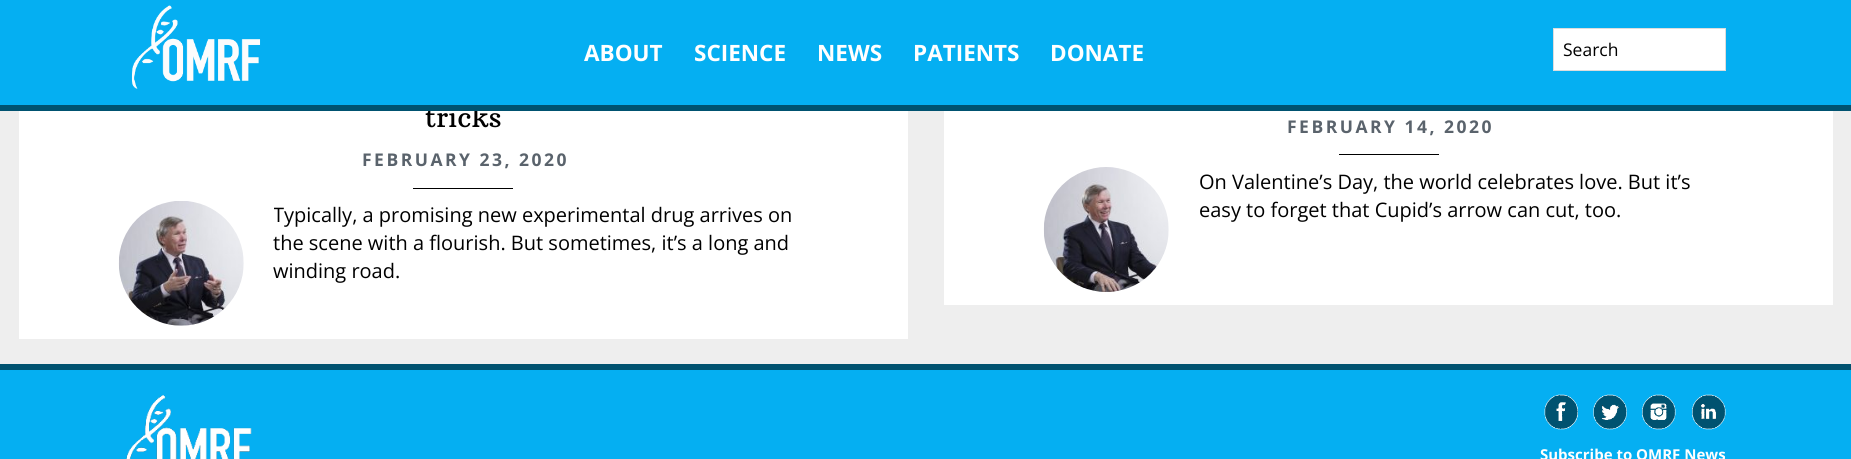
import math
import cairo


def use_color(cr, r, g, b):
  cr.set_source_rgb(r / 255, g / 255, b / 255)

def text(cr, x, y, s, family, size, color, bold=False, italic=False):
  cr.select_font_face(family, cairo.FONT_SLANT_ITALIC if italic else cairo.FONT_SLANT_NORMAL, cairo.FONT_WEIGHT_BOLD if bold else cairo.FONT_WEIGHT_NORMAL)
  cr.set_font_size(size)
  use_color(cr, *color)
  cr.move_to(x, y)
  cr.show_text(s)

def spaced_text(cr, x, y, s, letter, word):
  cr.move_to(x, y)
  for ch in s:
    cr.show_text(ch)
    cr.rel_move_to(letter + word * (ch == ' '), 0)

def box(cr, x, y, w, h, *color):
  use_color(cr, *color)
  cr.rectangle(x, y, w, h)
  cr.fill()

def picture(cr, path, x, y, w, h):
  cr.save()
  cr.set_source_surface(cairo.ImageSurface.create_from_png(path), x, y)
  cr.rectangle(x, y, w, h)
  cr.fill()
  cr.restore()

def draw(cr):
  use_color(cr, 238, 238, 238)
  cr.paint()
  box(cr, 0, 0, 1851, 105, 5, 175, 242)
  picture(cr, "img_01.png", 131, 5, 130, 84)
  use_color(cr, 255, 255, 255)
  cr.rectangle(1553.5, 28.5, 172, 42)
  cr.fill_preserve()
  use_color(cr, 221, 221, 221)
  cr.set_line_width(1)
  cr.stroke()
  box(cr, 19, 111, 889, 228, 255, 255, 255)
  box(cr, 413, 188, 100, 1, 0, 0, 0)
  picture(cr, "img_02.png", 118, 201, 126, 125)
  box(cr, 944, 111, 889, 194, 255, 255, 255)
  box(cr, 1339, 154, 100, 1, 0, 0, 0)
  picture(cr, "img_03.png", 1043, 167, 126, 125)
  box(cr, 0, 370, 1851, 89, 5, 175, 242)
  box(cr, 0, 364, 1851, 6, 0, 82, 112)
  picture(cr, "img_04.png", 126, 395, 126, 64)
  picture(cr, "img_05.png", 1544, 394, 34, 36)
  picture(cr, "img_06.png", 1593, 394, 34, 36)
  picture(cr, "img_07.png", 1642, 394, 34, 36)
  picture(cr, "img_08.png", 1692, 394, 34, 36)
  text(cr, 584, 61, "ABOUT", "Open Sans", 22.5, (255, 255, 255), bold=True)
  text(cr, 694, 61, "SCIENCE", "Open Sans", 22.5, (255, 255, 255), bold=True)
  text(cr, 817, 61, "NEWS", "Open Sans", 22.5, (255, 255, 255), bold=True)
  text(cr, 913, 61, "PATIENTS", "Open Sans", 22.5, (255, 255, 255), bold=True)
  text(cr, 1050, 61, "DONATE", "Open Sans", 22.5, (255, 255, 255), bold=True)
  text(cr, 1563, 56, "Search", "Open Sans", 17.5, (0, 0, 0))
  text(cr, 425, 127, "tricks", "Arbutus Slab", 27.5, (0, 0, 0))
  box(cr, 0, 105, 1851, 6, 0, 82, 112)
  cr.select_font_face("Open Sans", cairo.FONT_SLANT_NORMAL, cairo.FONT_WEIGHT_BOLD)
  cr.set_font_size(17.5)
  use_color(cr, 90, 99, 108)
  spaced_text(cr, 362, 166, "FEBRUARY 23, 2020", 2.5, 0)
  cr.save()
  cr.rectangle(274, 201, 534, 84)
  cr.clip()
  text(cr, 273, 222, "Typically, a promising new experimental drug arrives on", "Open Sans", 20, (0, 0, 0))
  cr.restore()
  text(cr, 273, 250, "the scene with a flourish. But sometimes, it’s a long and", "Open Sans", 20, (0, 0, 0))
  text(cr, 273, 278, "winding road.", "Open Sans", 20, (0, 0, 0))
  cr.select_font_face("Open Sans", cairo.FONT_SLANT_NORMAL, cairo.FONT_WEIGHT_BOLD)
  cr.set_font_size(17.5)
  use_color(cr, 90, 99, 108)
  spaced_text(cr, 1287, 133, "FEBRUARY 14, 2020", 2.5, 0)
  text(cr, 1199, 189, "On Valentine’s Day, the world celebrates love. But it’s", "Open Sans", 20, (0, 0, 0))
  text(cr, 1199, 217, "easy to forget that Cupid’s arrow can cut, too.", "Open Sans", 20, (0, 0, 0))
  text(cr, 1540, 460, "Subscribe to OMRF News", "Open Sans", 15, (255, 255, 255), bold=True)


surface = cairo.ImageSurface(cairo.FORMAT_RGB24, 1851, 459)
cr = cairo.Context(surface)
options = cairo.FontOptions()
options.set_hint_metrics(cairo.HINT_METRICS_OFF)
options.set_hint_style(cairo.HINT_STYLE_NONE)
cr.set_font_options(options)
cr.set_miter_limit(4)
draw(cr)
surface.write_to_png("out.png")
